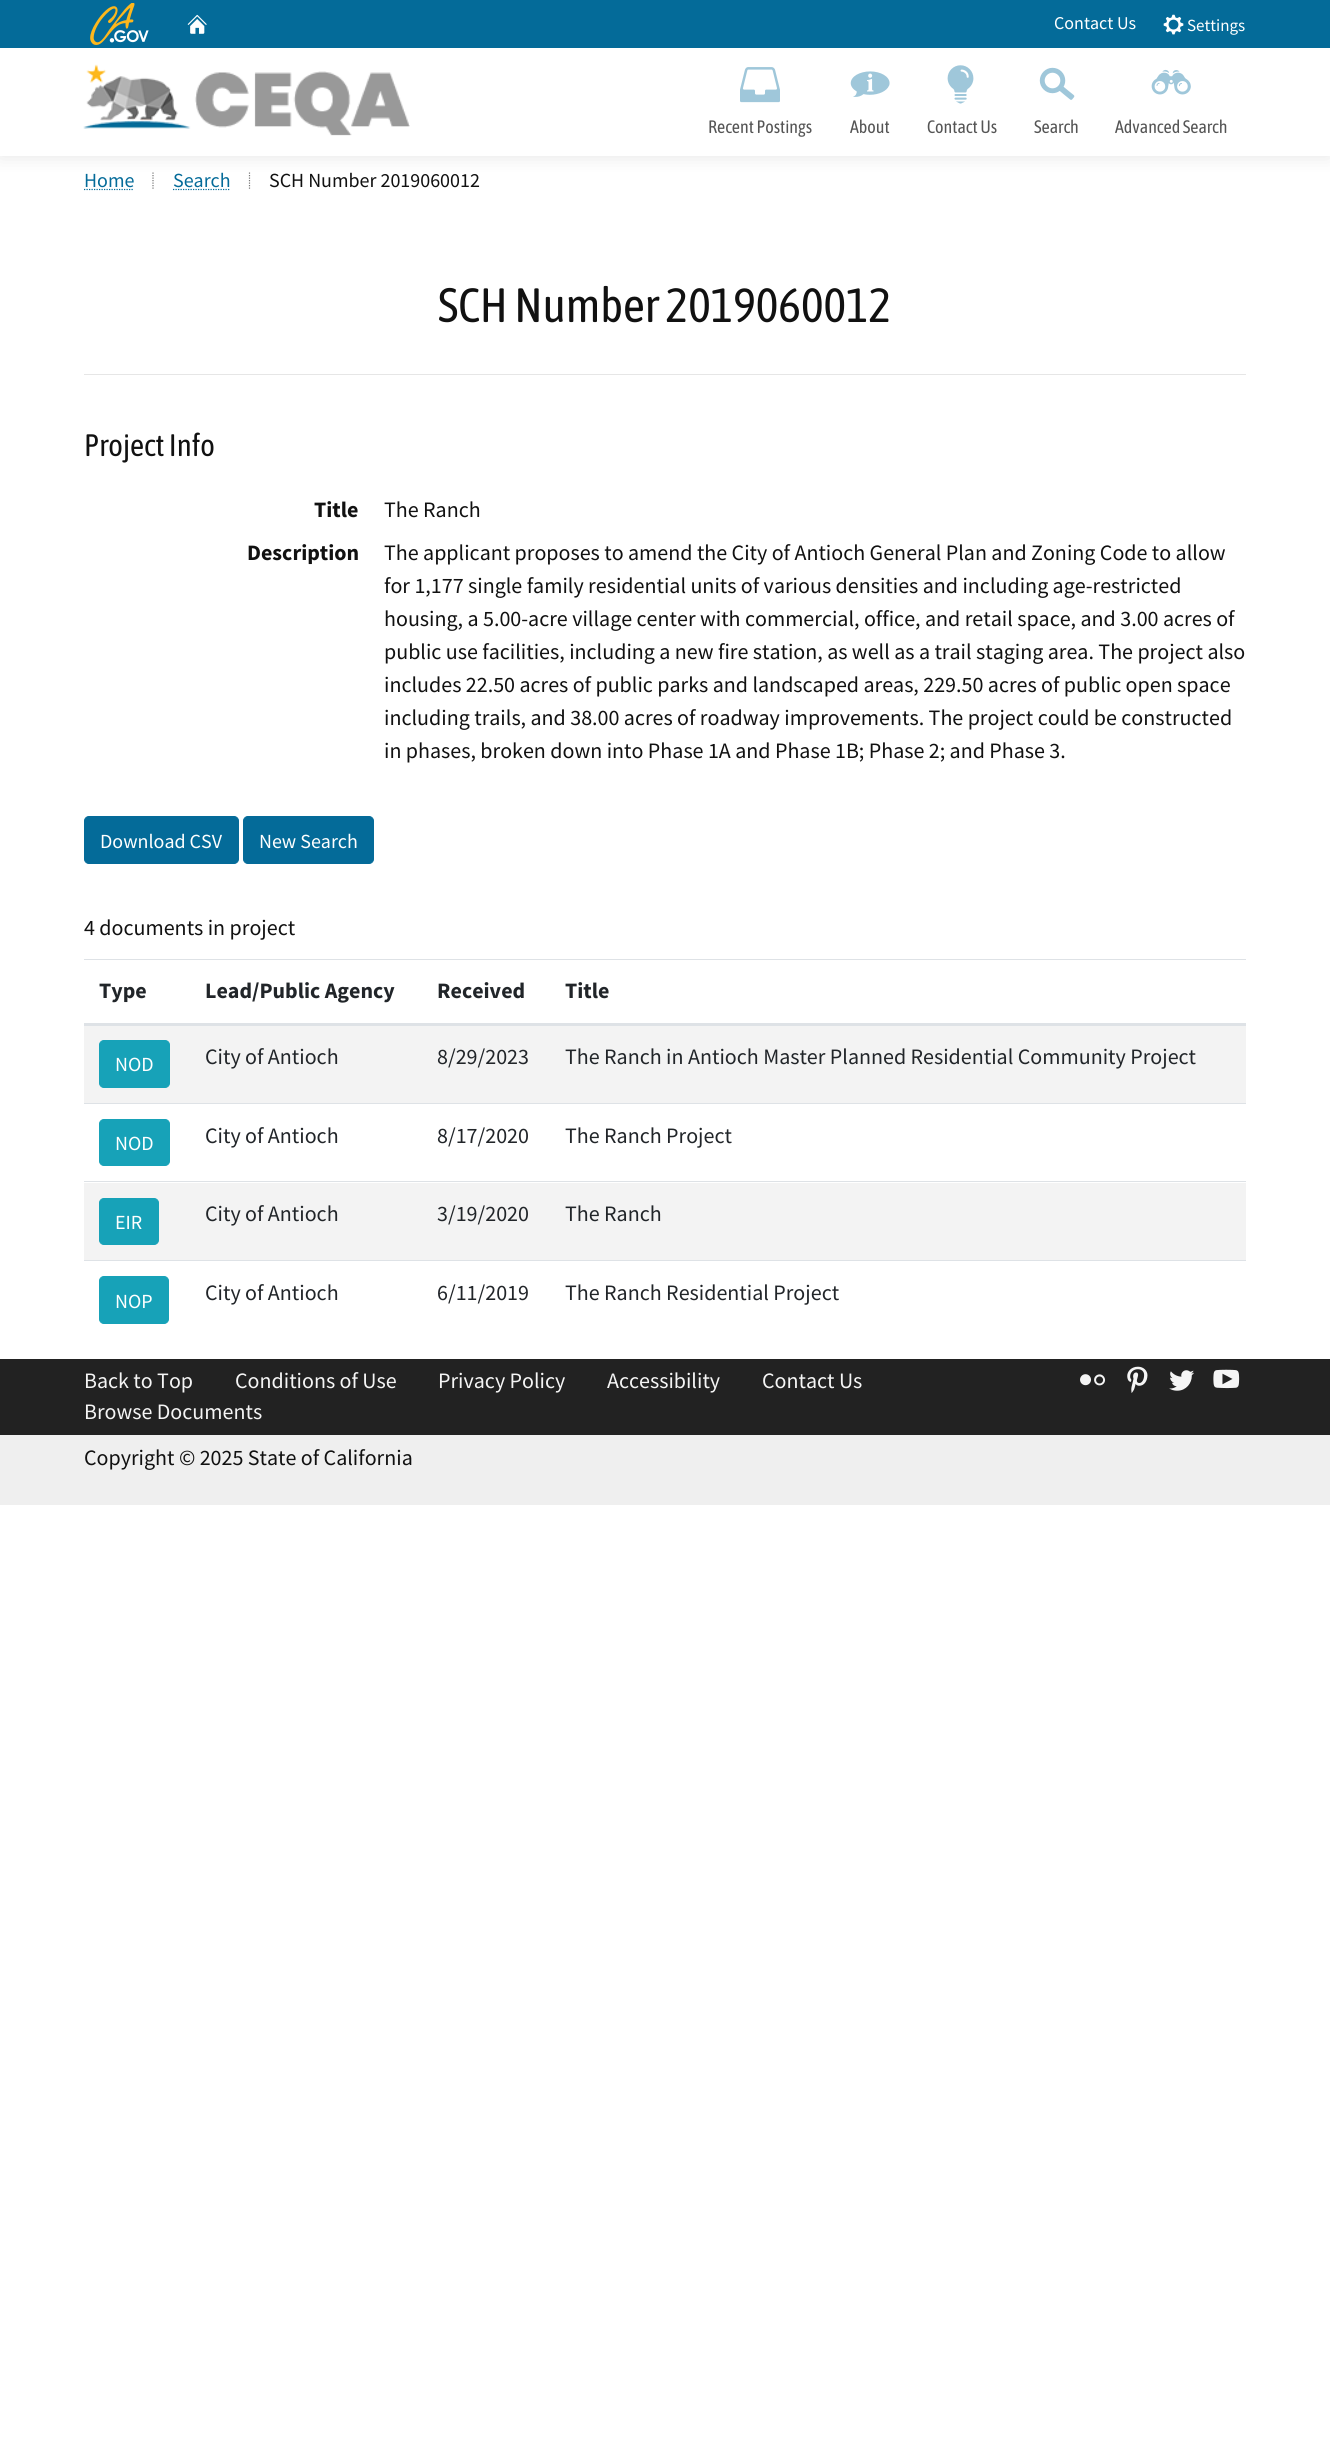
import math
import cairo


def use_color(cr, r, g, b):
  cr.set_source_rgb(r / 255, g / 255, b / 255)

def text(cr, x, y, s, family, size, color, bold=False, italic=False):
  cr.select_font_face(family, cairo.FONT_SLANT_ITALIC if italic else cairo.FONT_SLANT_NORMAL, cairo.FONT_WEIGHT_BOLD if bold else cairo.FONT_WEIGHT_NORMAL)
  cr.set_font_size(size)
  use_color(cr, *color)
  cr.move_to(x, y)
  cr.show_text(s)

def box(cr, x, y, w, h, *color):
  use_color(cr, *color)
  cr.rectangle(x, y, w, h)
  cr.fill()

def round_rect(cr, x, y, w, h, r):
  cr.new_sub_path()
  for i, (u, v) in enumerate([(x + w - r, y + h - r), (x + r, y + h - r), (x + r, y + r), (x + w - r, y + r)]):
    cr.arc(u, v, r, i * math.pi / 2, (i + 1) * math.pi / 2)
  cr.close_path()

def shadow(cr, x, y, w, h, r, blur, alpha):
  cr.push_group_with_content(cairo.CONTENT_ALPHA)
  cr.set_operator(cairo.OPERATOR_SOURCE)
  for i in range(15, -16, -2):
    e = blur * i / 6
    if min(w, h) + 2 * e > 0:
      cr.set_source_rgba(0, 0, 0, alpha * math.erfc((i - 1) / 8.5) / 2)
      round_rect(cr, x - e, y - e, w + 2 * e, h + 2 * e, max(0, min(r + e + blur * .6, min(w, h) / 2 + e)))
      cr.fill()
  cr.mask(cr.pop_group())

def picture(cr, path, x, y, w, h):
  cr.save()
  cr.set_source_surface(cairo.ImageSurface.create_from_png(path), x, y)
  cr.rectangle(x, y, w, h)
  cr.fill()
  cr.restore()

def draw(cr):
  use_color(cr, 255, 255, 255)
  cr.paint()
  cr.new_path()
  cr.move_to(153, 172.5)
  cr.line_to(153, 189)
  use_color(cr, 119, 119, 119)
  cr.set_line_width(1.2)
  cr.set_dash([1.25, 1.25])
  cr.stroke()
  cr.new_path()
  cr.move_to(249.5, 172.5)
  cr.line_to(249.5, 189)
  cr.stroke()
  cr.save()
  cr.rectangle(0, 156, 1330, 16)
  cr.clip()
  use_color(cr, 189, 189, 189)
  shadow(cr, 0, 0, 1330, 156, 0, 9.5, 0.4)
  cr.restore()
  box(cr, 0, 0, 1330, 48, 4, 107, 153)
  picture(cr, "img_01.png", 90, 3, 59, 42)
  picture(cr, "img_02.png", 187, 14, 20, 20)
  picture(cr, "img_03.png", 1163, 14, 21, 21)
  picture(cr, "img_04.png", 83, 64, 327, 72)
  picture(cr, "img_05.png", 740, 67, 40, 36)
  picture(cr, "img_06.png", 850, 71, 40, 26)
  picture(cr, "img_07.png", 947, 65, 27, 39)
  picture(cr, "img_08.png", 1039, 67, 36, 33)
  picture(cr, "img_09.png", 1151, 69, 40, 26)
  cr.new_path()
  cr.move_to(84, 189.5)
  cr.line_to(134, 189.5)
  cr.stroke()
  cr.new_path()
  cr.move_to(173, 189.5)
  cr.line_to(230.5, 189.5)
  cr.stroke()
  box(cr, 84, 374, 1162, 1, 230, 230, 230)
  use_color(cr, 4, 107, 153)
  round_rect(cr, 84.5, 816.5, 154, 47, 4.5)
  cr.fill_preserve()
  cr.set_line_width(1)
  cr.set_dash([])
  cr.stroke()
  round_rect(cr, 243.5, 816.5, 130, 47, 4.5)
  cr.fill_preserve()
  cr.stroke()
  box(cr, 84, 959, 1162, 1, 222, 226, 230)
  box(cr, 84, 1023, 1162, 3, 222, 226, 230)
  box(cr, 84, 1026, 1162, 77, 243, 243, 243)
  use_color(cr, 23, 162, 184)
  round_rect(cr, 99.5, 1040.5, 70, 47, 4.5)
  cr.fill_preserve()
  cr.stroke()
  round_rect(cr, 99.5, 1119.5, 70, 46, 4.5)
  cr.fill_preserve()
  cr.stroke()
  box(cr, 84, 1103, 1162, 1, 222, 226, 230)
  box(cr, 84, 1183, 1162, 77, 243, 243, 243)
  use_color(cr, 23, 162, 184)
  round_rect(cr, 99.5, 1198.5, 59, 46, 4.5)
  cr.fill_preserve()
  cr.stroke()
  box(cr, 84, 1181, 1162, 1, 222, 226, 230)
  use_color(cr, 23, 162, 184)
  round_rect(cr, 99.5, 1276.5, 69, 47, 4.5)
  cr.fill_preserve()
  cr.stroke()
  box(cr, 84, 1260, 1162, 1, 222, 226, 230)
  box(cr, 0, 1359, 1330, 76, 34, 34, 34)
  picture(cr, "img_10.png", 1080, 1374, 26, 12)
  picture(cr, "img_11.png", 1127, 1366, 21, 27)
  picture(cr, "img_12.png", 1169, 1370, 25, 21)
  picture(cr, "img_13.png", 1213, 1369, 27, 20)
  box(cr, 0, 1435, 1330, 70, 239, 239, 239)
  text(cr, 1054, 29, "Contact Us", "Source Sans Pro", 18, (255, 255, 255))
  text(cr, 1187, 31, "Settings", "Source Sans Pro", 17, (255, 255, 255))
  text(cr, 708, 133, "Recent Postings", "Asap Condensed", 18, (85, 85, 85))
  text(cr, 850, 133, "About", "Asap Condensed", 18, (85, 85, 85))
  text(cr, 927, 133, "Contact Us", "Asap Condensed", 18, (85, 85, 85))
  text(cr, 1034, 133, "Search", "Asap Condensed", 18, (85, 85, 85))
  text(cr, 1115, 133, "Advanced Search", "Asap Condensed", 18, (85, 85, 85))
  text(cr, 84, 187, "Home", "Source Sans Pro", 20, (4, 107, 153))
  text(cr, 173, 187, "Search", "Source Sans Pro", 20, (4, 107, 153))
  text(cr, 269, 187, "SCH Number 2019060012", "Source Sans Pro", 20, (17, 17, 17))
  text(cr, 438, 322, "SCH Number 2019060012", "Asap Condensed", 48, (17, 17, 17))
  text(cr, 84, 456, "Project Info", "Asap Condensed", 31, (17, 17, 17))
  text(cr, 314, 517, "Title", "Source Sans Pro", 22, (17, 17, 17), bold=True)
  text(cr, 384, 517, "The Ranch", "Source Sans Pro", 22, (17, 17, 17))
  text(cr, 247, 560, "Description", "Source Sans Pro", 22, (17, 17, 17), bold=True)
  text(cr, 384, 560, "The applicant proposes to amend the City of Antioch General Plan and Zoning Code to allow", "Source Sans Pro", 22, (17, 17, 17))
  text(cr, 384, 593, "for 1,177 single family residential units of various densities and including age-restricted", "Source Sans Pro", 22, (17, 17, 17))
  text(cr, 384, 626, "housing, a 5.00-acre village center with commercial, office, and retail space, and 3.00 acres of", "Source Sans Pro", 22, (17, 17, 17))
  text(cr, 384, 659, "public use facilities, including a new fire station, as well as a trail staging area. The project also", "Source Sans Pro", 22, (17, 17, 17))
  text(cr, 384, 692, "includes 22.50 acres of public parks and landscaped areas, 229.50 acres of public open space", "Source Sans Pro", 22, (17, 17, 17))
  text(cr, 384, 725, "including trails, and 38.00 acres of roadway improvements. The project could be constructed", "Source Sans Pro", 22, (17, 17, 17))
  text(cr, 384, 758, "in phases, broken down into Phase 1A and Phase 1B; Phase 2; and Phase 3.", "Source Sans Pro", 22, (17, 17, 17))
  text(cr, 100, 848, "Download CSV", "Source Sans Pro", 20, (255, 255, 255))
  text(cr, 259, 848, "New Search", "Source Sans Pro", 20, (255, 255, 255))
  text(cr, 84, 935, "4 documents in project", "Source Sans Pro", 22, (17, 17, 17))
  text(cr, 99, 998, "Type", "Source Sans Pro", 22, (33, 37, 41), bold=True)
  text(cr, 205, 998, "Lead/Public Agency", "Source Sans Pro", 22, (33, 37, 41), bold=True)
  text(cr, 437, 998, "Received", "Source Sans Pro", 22, (33, 37, 41), bold=True)
  text(cr, 565, 998, "Title", "Source Sans Pro", 22, (33, 37, 41), bold=True)
  text(cr, 115, 1071, "NOD", "Source Sans Pro", 20, (255, 255, 255))
  text(cr, 205, 1064, "City of Antioch", "Source Sans Pro", 22, (33, 37, 41))
  text(cr, 437, 1064, "8/29/2023", "Source Sans Pro", 22, (33, 37, 41))
  text(cr, 565, 1064, "The Ranch in Antioch Master Planned Residential Community Project", "Source Sans Pro", 22, (33, 37, 41))
  text(cr, 115, 1150, "NOD", "Source Sans Pro", 20, (255, 255, 255))
  text(cr, 205, 1143, "City of Antioch", "Source Sans Pro", 22, (33, 37, 41))
  text(cr, 437, 1143, "8/17/2020", "Source Sans Pro", 22, (33, 37, 41))
  text(cr, 565, 1143, "The Ranch Project", "Source Sans Pro", 22, (33, 37, 41))
  text(cr, 115, 1229, "EIR", "Source Sans Pro", 20, (255, 255, 255))
  text(cr, 205, 1221, "City of Antioch", "Source Sans Pro", 22, (33, 37, 41))
  text(cr, 437, 1221, "3/19/2020", "Source Sans Pro", 22, (33, 37, 41))
  text(cr, 565, 1221, "The Ranch", "Source Sans Pro", 22, (33, 37, 41))
  text(cr, 115, 1308, "NOP", "Source Sans Pro", 20, (255, 255, 255))
  text(cr, 205, 1300, "City of Antioch", "Source Sans Pro", 22, (33, 37, 41))
  text(cr, 437, 1300, "6/11/2019", "Source Sans Pro", 22, (33, 37, 41))
  text(cr, 565, 1300, "The Ranch Residential Project", "Source Sans Pro", 22, (33, 37, 41))
  text(cr, 84, 1388, "Back to Top", "Source Sans Pro", 22, (245, 245, 245))
  text(cr, 235, 1388, "Conditions of Use", "Source Sans Pro", 22, (245, 245, 245))
  text(cr, 438, 1388, "Privacy Policy", "Source Sans Pro", 22, (245, 245, 245))
  text(cr, 607, 1388, "Accessibility", "Source Sans Pro", 22, (245, 245, 245))
  text(cr, 762, 1388, "Contact Us", "Source Sans Pro", 22, (245, 245, 245))
  text(cr, 84, 1419, "Browse Documents", "Source Sans Pro", 22, (245, 245, 245))
  text(cr, 84, 1465, "Copyright © 2025 State of California", "Source Sans Pro", 22, (17, 17, 17))


surface = cairo.ImageSurface(cairo.FORMAT_RGB24, 1330, 2463)
cr = cairo.Context(surface)
options = cairo.FontOptions()
options.set_hint_metrics(cairo.HINT_METRICS_OFF)
options.set_hint_style(cairo.HINT_STYLE_NONE)
cr.set_font_options(options)
cr.set_miter_limit(4)
draw(cr)
surface.write_to_png("out.png")
